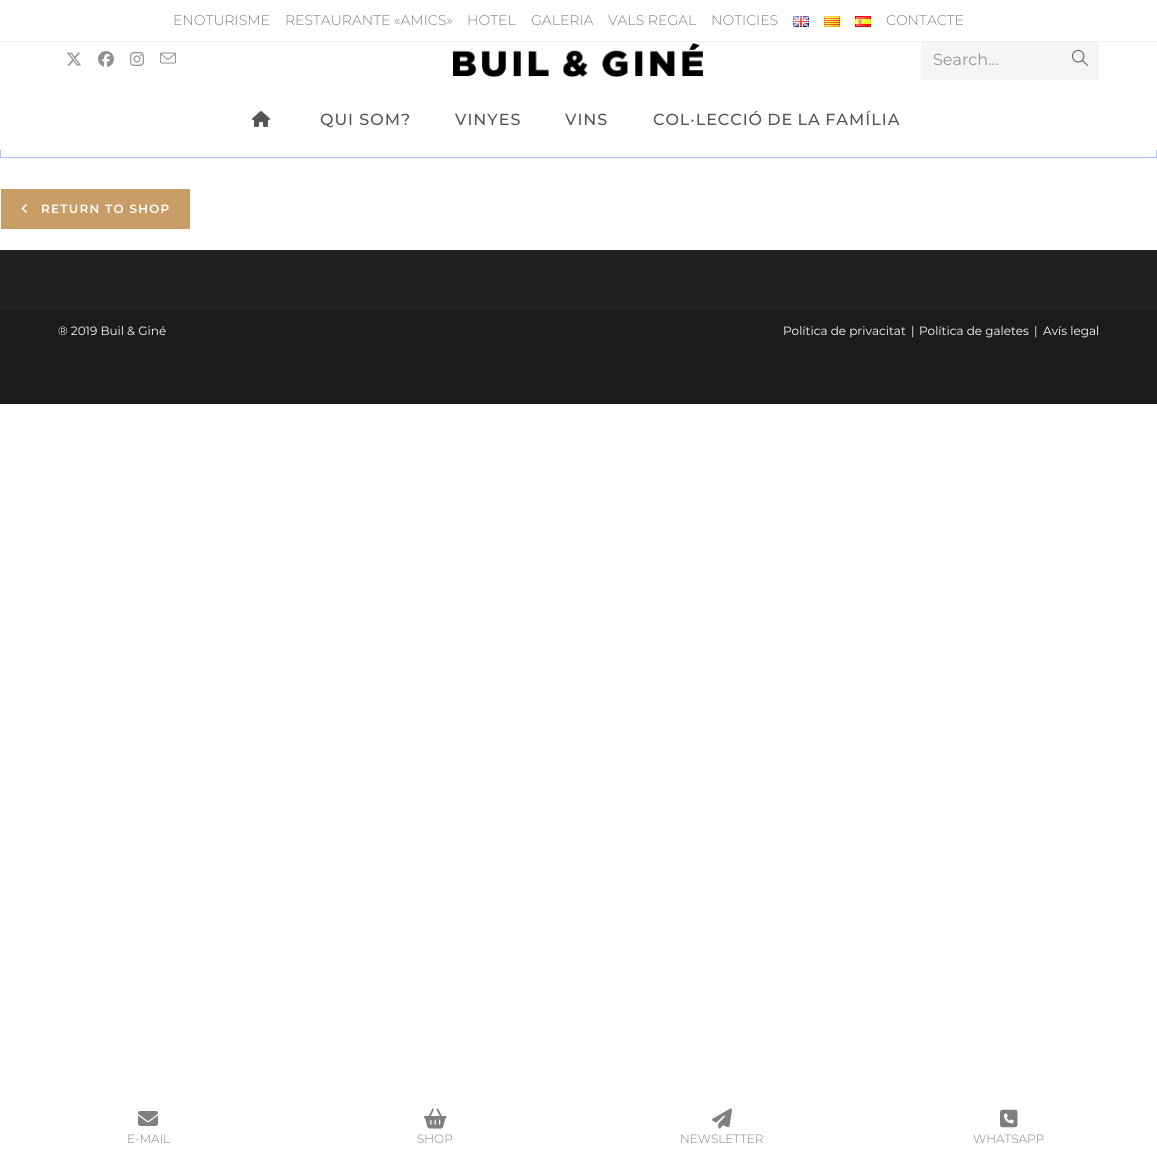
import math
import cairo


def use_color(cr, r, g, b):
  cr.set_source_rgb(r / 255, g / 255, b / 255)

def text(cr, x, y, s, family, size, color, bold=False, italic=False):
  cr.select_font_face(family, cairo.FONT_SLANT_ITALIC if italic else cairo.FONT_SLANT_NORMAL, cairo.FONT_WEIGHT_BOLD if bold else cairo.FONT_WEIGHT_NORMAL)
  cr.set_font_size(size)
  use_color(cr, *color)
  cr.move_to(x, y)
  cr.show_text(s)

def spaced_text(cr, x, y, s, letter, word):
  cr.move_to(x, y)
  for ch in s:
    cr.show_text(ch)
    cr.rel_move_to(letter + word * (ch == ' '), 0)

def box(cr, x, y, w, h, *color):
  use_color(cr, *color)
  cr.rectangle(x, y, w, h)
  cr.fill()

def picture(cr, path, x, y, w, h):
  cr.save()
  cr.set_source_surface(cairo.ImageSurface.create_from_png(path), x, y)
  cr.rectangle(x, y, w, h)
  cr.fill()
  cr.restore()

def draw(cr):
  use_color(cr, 255, 255, 255)
  cr.paint()
  box(cr, 0, 41, 1157, 1, 241, 241, 241)
  picture(cr, "img_01.png", 793, 16, 16, 11)
  picture(cr, "img_02.png", 824, 16, 16, 11)
  picture(cr, "img_03.png", 855, 16, 16, 11)
  picture(cr, "img_04.png", 138, 1111, 20, 15)
  picture(cr, "img_05.png", 424, 1108, 23, 21)
  picture(cr, "img_06.png", 712, 1108, 20, 21)
  picture(cr, "img_07.png", 1000, 1109, 18, 19)
  picture(cr, "img_08.png", 67, 52, 15, 14)
  picture(cr, "img_09.png", 98, 51, 16, 16)
  picture(cr, "img_10.png", 130, 52, 14, 14)
  picture(cr, "img_11.png", 160, 52, 16, 12)
  picture(cr, "img_12.png", 453, 43, 250, 34)
  box(cr, 921, 42, 178, 38, 245, 245, 245)
  picture(cr, "img_13.png", 1072, 50, 16, 16)
  cr.rectangle(0.5, 120.5, 1156, 37)
  use_color(cr, 177, 190, 253)
  cr.set_line_width(1)
  cr.stroke()
  box(cr, 0, 120, 1157, 30, 255, 255, 255)
  picture(cr, "img_14.png", 252, 111, 18, 16)
  box(cr, 1, 189, 189, 40, 201, 157, 102)
  picture(cr, "img_15.png", 21, 204, 6, 9)
  box(cr, 0, 250, 1157, 60, 34, 34, 34)
  box(cr, 0, 310, 1157, 94, 27, 27, 27)
  text(cr, 173, 25, "ENOTURISME", "Montserrat Light", 14, (127, 127, 127))
  text(cr, 285, 25, "RESTAURANTE «AMICS»", "Montserrat Light", 14, (127, 127, 127))
  text(cr, 467, 25, "HOTEL", "Montserrat Light", 14, (127, 127, 127))
  text(cr, 531, 25, "GALERIA", "Montserrat Light", 14, (127, 127, 127))
  text(cr, 608, 25, "VALS REGAL", "Montserrat Light", 14, (127, 127, 127))
  text(cr, 711, 25, "NOTICIES", "Montserrat Light", 14, (127, 127, 127))
  text(cr, 886, 25, "CONTACTE", "Montserrat Light", 14, (127, 127, 127))
  text(cr, 127, 1143, "E-MAIL", "Montserrat Light", 12, (127, 127, 127))
  text(cr, 417, 1143, "SHOP", "Montserrat Light", 12, (127, 127, 127))
  text(cr, 680, 1143, "NEWSLETTER", "Montserrat Light", 12, (127, 127, 127))
  text(cr, 973, 1143, "WHATSAPP", "Montserrat Light", 12, (127, 127, 127))
  text(cr, 933, 65, "Search...", "Montserrat", 16, (148, 148, 148))
  cr.select_font_face("Montserrat Medium")
  use_color(cr, 85, 85, 85)
  spaced_text(cr, 320, 125, "QUI SOM?", 1, 0)
  spaced_text(cr, 455, 125, "VINYES", 1, 0)
  spaced_text(cr, 565, 125, "VINS", 1, 0)
  spaced_text(cr, 653, 125, "COL·LECCIÓ DE LA FAMÍLIA", 1, -1)
  cr.select_font_face("Montserrat SemiBold")
  cr.set_font_size(12)
  use_color(cr, 255, 255, 255)
  spaced_text(cr, 41, 213, "RETURN TO SHOP", 1.25, 0)
  text(cr, 58, 335, "® 2019 Buil & Giné", "Montserrat", 12, (255, 255, 255))
  text(cr, 783, 335, "Política de privacitat", "Montserrat", 12, (255, 255, 255))
  text(cr, 911, 335, "|", "Montserrat", 12, (255, 255, 255))
  text(cr, 919, 335, "Política de galetes", "Montserrat", 12, (255, 255, 255))
  text(cr, 1034, 335, "|", "Montserrat", 12, (255, 255, 255))
  text(cr, 1043, 335, "Avís legal", "Montserrat", 12, (255, 255, 255))


surface = cairo.ImageSurface(cairo.FORMAT_RGB24, 1157, 1159)
cr = cairo.Context(surface)
options = cairo.FontOptions()
options.set_hint_metrics(cairo.HINT_METRICS_OFF)
options.set_hint_style(cairo.HINT_STYLE_NONE)
cr.set_font_options(options)
cr.set_miter_limit(4)
draw(cr)
surface.write_to_png("out.png")
